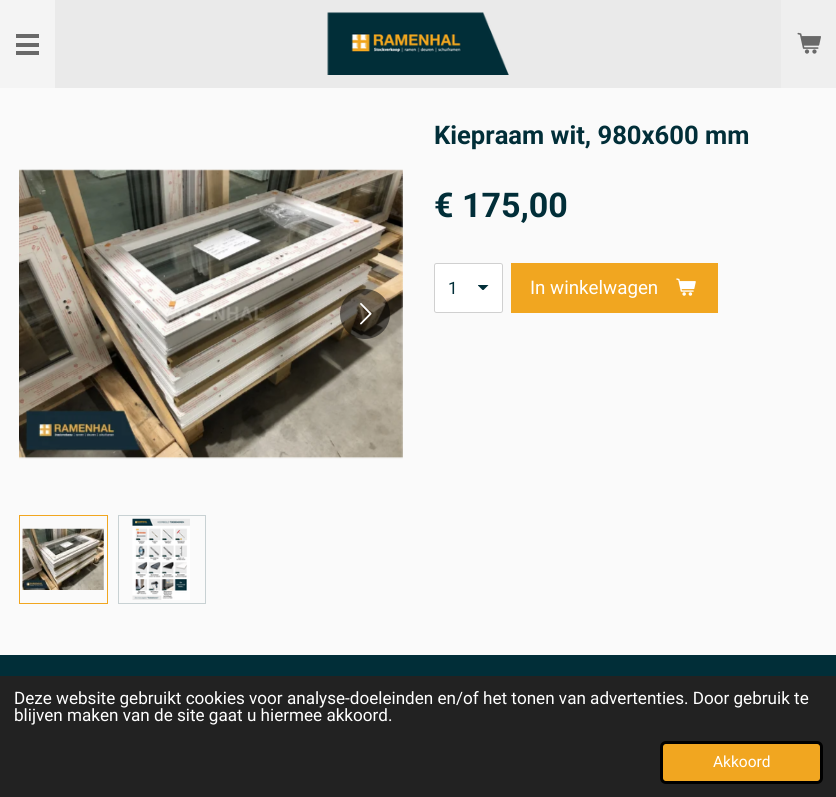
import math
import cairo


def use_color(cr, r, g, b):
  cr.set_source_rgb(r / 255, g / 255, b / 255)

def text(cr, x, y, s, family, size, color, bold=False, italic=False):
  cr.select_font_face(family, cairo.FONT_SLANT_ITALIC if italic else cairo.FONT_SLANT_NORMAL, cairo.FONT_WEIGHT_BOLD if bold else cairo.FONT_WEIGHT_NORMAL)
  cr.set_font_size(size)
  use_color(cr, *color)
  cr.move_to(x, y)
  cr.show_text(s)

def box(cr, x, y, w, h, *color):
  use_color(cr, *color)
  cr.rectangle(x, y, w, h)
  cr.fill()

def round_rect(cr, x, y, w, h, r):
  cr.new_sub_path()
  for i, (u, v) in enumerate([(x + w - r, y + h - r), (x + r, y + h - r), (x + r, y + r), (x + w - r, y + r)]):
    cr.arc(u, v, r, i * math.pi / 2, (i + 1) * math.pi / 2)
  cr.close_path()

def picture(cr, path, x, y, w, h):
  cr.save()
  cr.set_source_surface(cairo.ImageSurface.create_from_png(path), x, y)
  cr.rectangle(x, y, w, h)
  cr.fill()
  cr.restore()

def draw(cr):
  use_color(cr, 250, 250, 250)
  cr.paint()
  box(cr, 0, 0, 55, 88, 244, 244, 244)
  box(cr, 16, 43, 23, 4, 105, 105, 105)
  box(cr, 16, 34, 23, 4, 105, 105, 105)
  box(cr, 16, 51, 23, 4, 105, 105, 105)
  box(cr, 55, 0, 726, 88, 234, 234, 234)
  picture(cr, "img_01.png", 327, 12, 182, 63)
  box(cr, 781, 0, 55, 88, 239, 239, 239)
  picture(cr, "img_02.png", 797, 32, 24, 22)
  picture(cr, "img_03.png", 19, 169, 384, 290)
  cr.set_source_rgba(0, 0, 0, 0.5)
  cr.arc(365, 314, 25, 0, 2 * math.pi)
  cr.fill()
  picture(cr, "img_04.png", 360, 303, 12, 22)
  cr.rectangle(19.5, 515.5, 88, 88)
  use_color(cr, 241, 166, 32)
  cr.set_line_width(1)
  cr.stroke()
  picture(cr, "img_05.png", 22, 528, 82, 62)
  cr.rectangle(118.5, 515.5, 87, 88)
  use_color(cr, 200, 209, 211)
  cr.stroke()
  picture(cr, "img_06.png", 132, 518, 58, 82)
  use_color(cr, 255, 255, 255)
  round_rect(cr, 434, 263, 69, 50, 2.5)
  cr.fill()
  cr.save()
  cr.rectangle(478, 285, 11, 5)
  cr.clip()
  use_color(cr, 1, 46, 56)
  cr.new_path()
  cr.move_to(483, 290.5)
  cr.line_to(477.5, 285)
  cr.line_to(488.5, 285)
  cr.close_path()
  cr.fill()
  cr.restore()
  round_rect(cr, 434.5, 263.5, 68, 49, 2)
  use_color(cr, 208, 208, 208)
  cr.stroke()
  box(cr, 511, 263, 207, 50, 241, 166, 32)
  picture(cr, "img_07.png", 676, 278, 20, 18)
  box(cr, 0, 655, 836, 21, 1, 46, 56)
  box(cr, 0, 676, 836, 121, 34, 34, 34)
  use_color(cr, 241, 166, 32)
  round_rect(cr, 661.5, 742.5, 160, 40, 4.5)
  cr.fill_preserve()
  use_color(cr, 0, 0, 0)
  cr.set_line_width(3)
  cr.stroke()
  text(cr, 434, 144, "Kiepraam wit, 980x600 mm", "Roboto", 25.6, (1, 46, 56), bold=True)
  text(cr, 434, 217, "€ 175,00", "Roboto", 34, (1, 46, 56), bold=True)
  text(cr, 448, 294, "1", "Roboto", 17.1, (1, 46, 56))
  text(cr, 530, 294, "In winkelwagen", "Roboto", 18.75, (255, 255, 255))
  text(cr, 14, 704, "Deze website gebruikt cookies voor analyse-doeleinden en/of het tonen van advertenties. Door gebruik te", "Roboto", 17.1, (255, 255, 255))
  text(cr, 14, 721, "blijven maken van de site gaat u hiermee akkoord.", "Roboto", 17.1, (255, 255, 255))
  text(cr, 713, 767, "Akkoord", "Roboto", 15.5, (255, 255, 255))


surface = cairo.ImageSurface(cairo.FORMAT_RGB24, 836, 797)
cr = cairo.Context(surface)
options = cairo.FontOptions()
options.set_hint_metrics(cairo.HINT_METRICS_OFF)
options.set_hint_style(cairo.HINT_STYLE_NONE)
cr.set_font_options(options)
cr.set_miter_limit(4)
draw(cr)
surface.write_to_png("out.png")
